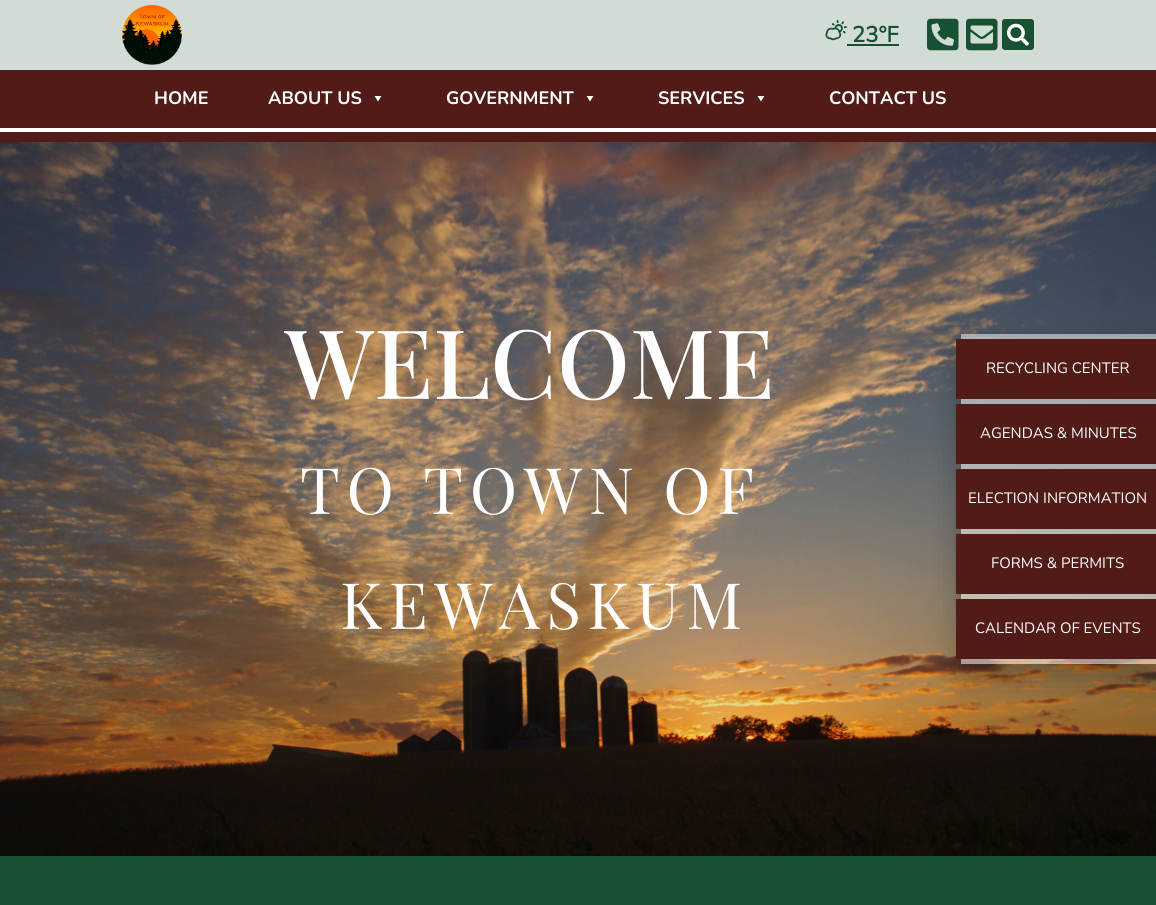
import math
import cairo


def use_color(cr, r, g, b):
  cr.set_source_rgb(r / 255, g / 255, b / 255)

def text(cr, x, y, s, family, size, color, bold=False, italic=False):
  cr.select_font_face(family, cairo.FONT_SLANT_ITALIC if italic else cairo.FONT_SLANT_NORMAL, cairo.FONT_WEIGHT_BOLD if bold else cairo.FONT_WEIGHT_NORMAL)
  cr.set_font_size(size)
  use_color(cr, *color)
  cr.move_to(x, y)
  cr.show_text(s)

def spaced_text(cr, x, y, s, letter, word):
  cr.move_to(x, y)
  for ch in s:
    cr.show_text(ch)
    cr.rel_move_to(letter + word * (ch == ' '), 0)

def box(cr, x, y, w, h, *color):
  use_color(cr, *color)
  cr.rectangle(x, y, w, h)
  cr.fill()

def round_rect(cr, x, y, w, h, r):
  cr.new_sub_path()
  for i, (u, v) in enumerate([(x + w - r, y + h - r), (x + r, y + h - r), (x + r, y + r), (x + w - r, y + r)]):
    cr.arc(u, v, r, i * math.pi / 2, (i + 1) * math.pi / 2)
  cr.close_path()

def shadow(cr, x, y, w, h, r, blur, alpha):
  cr.push_group_with_content(cairo.CONTENT_ALPHA)
  cr.set_operator(cairo.OPERATOR_SOURCE)
  for i in range(15, -16, -2):
    e = blur * i / 6
    if min(w, h) + 2 * e > 0:
      cr.set_source_rgba(0, 0, 0, alpha * math.erfc((i - 1) / 8.5) / 2)
      round_rect(cr, x - e, y - e, w + 2 * e, h + 2 * e, max(0, min(r + e + blur * .6, min(w, h) / 2 + e)))
      cr.fill()
  cr.mask(cr.pop_group())

def picture(cr, path, x, y, w, h):
  cr.save()
  cr.set_source_surface(cairo.ImageSurface.create_from_png(path), x, y)
  cr.rectangle(x, y, w, h)
  cr.fill()
  cr.restore()

def draw(cr):
  use_color(cr, 255, 255, 255)
  cr.paint()
  box(cr, 0, 70, 1156, 72, 81, 27, 24)
  box(cr, 0, 0, 1156, 70, 209, 220, 214)
  picture(cr, "img_01.png", 122, 5, 60, 60)
  picture(cr, "img_02.png", 825, 20, 22, 21)
  box(cr, 847, 44, 52, 2, 24, 81, 50)
  picture(cr, "img_03.png", 927, 18, 32, 33)
  picture(cr, "img_04.png", 966, 18, 32, 33)
  round_rect(cr, 1002, 19, 32, 31, 3)
  cr.fill()
  picture(cr, "img_05.png", 1007, 23, 22, 23)
  use_color(cr, 255, 255, 255)
  cr.new_path()
  cr.move_to(381.5, 96)
  cr.line_to(378, 101.5)
  cr.line_to(374.5, 96)
  cr.close_path()
  cr.fill()
  cr.new_path()
  cr.move_to(593.5, 96)
  cr.line_to(590, 101.5)
  cr.line_to(586.5, 96)
  cr.close_path()
  cr.fill()
  cr.new_path()
  cr.move_to(764.5, 96)
  cr.line_to(761, 101.5)
  cr.line_to(757.5, 96)
  cr.close_path()
  cr.fill()
  box(cr, 0, 128, 1156, 4, 255, 255, 255)
  picture(cr, "img_06.png", 0, 142, 1156, 714)
  cr.save()
  cr.set_fill_rule(cairo.FILL_RULE_EVEN_ODD)
  cr.new_path()
  cr.move_to(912, 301)
  cr.line_to(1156, 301)
  cr.line_to(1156, 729)
  cr.line_to(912, 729)
  cr.close_path()
  cr.move_to(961, 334)
  cr.line_to(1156, 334)
  cr.line_to(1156, 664)
  cr.line_to(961, 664)
  cr.close_path()
  cr.clip()
  use_color(cr, 0, 0, 0)
  shadow(cr, 961, 350, 195, 330, 0, 16, 0.3)
  cr.restore()
  cr.set_source_rgba(1, 1, 1, 0.5)
  cr.rectangle(961, 334, 195, 330)
  cr.fill()
  box(cr, 956, 339, 200, 60, 81, 27, 24)
  box(cr, 956, 404, 200, 60, 81, 27, 24)
  box(cr, 956, 469, 200, 60, 81, 27, 24)
  box(cr, 956, 534, 200, 60, 81, 27, 24)
  box(cr, 956, 599, 200, 60, 81, 27, 24)
  box(cr, 0, 856, 1156, 49, 24, 81, 50)
  text(cr, 852, 42, "23°F", "Nunito Sans", 22, (24, 81, 50), bold=True)
  text(cr, 154, 104, "HOME", "Nunito", 18, (255, 255, 255), bold=True)
  text(cr, 268, 104, "ABOUT US", "Nunito", 18, (255, 255, 255), bold=True)
  text(cr, 446, 104, "GOVERNMENT", "Nunito", 18, (255, 255, 255), bold=True)
  text(cr, 658, 104, "SERVICES", "Nunito", 18, (255, 255, 255), bold=True)
  text(cr, 829, 104, "CONTACT US", "Nunito", 18, (255, 255, 255), bold=True)
  text(cr, 285, 399, "WELCOME", "Playfair Display Medium", 96, (255, 255, 255))
  cr.select_font_face("Playfair Display")
  cr.set_font_size(64)
  spaced_text(cr, 300, 514, "TO TOWN OF", 6.75, 0)
  spaced_text(cr, 340, 629, "KEWASKUM", 6.75, 0)
  text(cr, 986, 373, "RECYCLING CENTER", "Nunito", 15, (255, 255, 255))
  text(cr, 980, 438, "AGENDAS & MINUTES", "Nunito", 15, (255, 255, 255))
  text(cr, 968, 503, "ELECTION INFORMATION", "Nunito", 15, (255, 255, 255))
  text(cr, 991, 568, "FORMS & PERMITS", "Nunito", 15, (255, 255, 255))
  text(cr, 975, 633, "CALENDAR OF EVENTS", "Nunito", 15, (255, 255, 255))


surface = cairo.ImageSurface(cairo.FORMAT_RGB24, 1156, 905)
cr = cairo.Context(surface)
options = cairo.FontOptions()
options.set_hint_metrics(cairo.HINT_METRICS_OFF)
options.set_hint_style(cairo.HINT_STYLE_NONE)
cr.set_font_options(options)
cr.set_miter_limit(4)
draw(cr)
surface.write_to_png("out.png")
